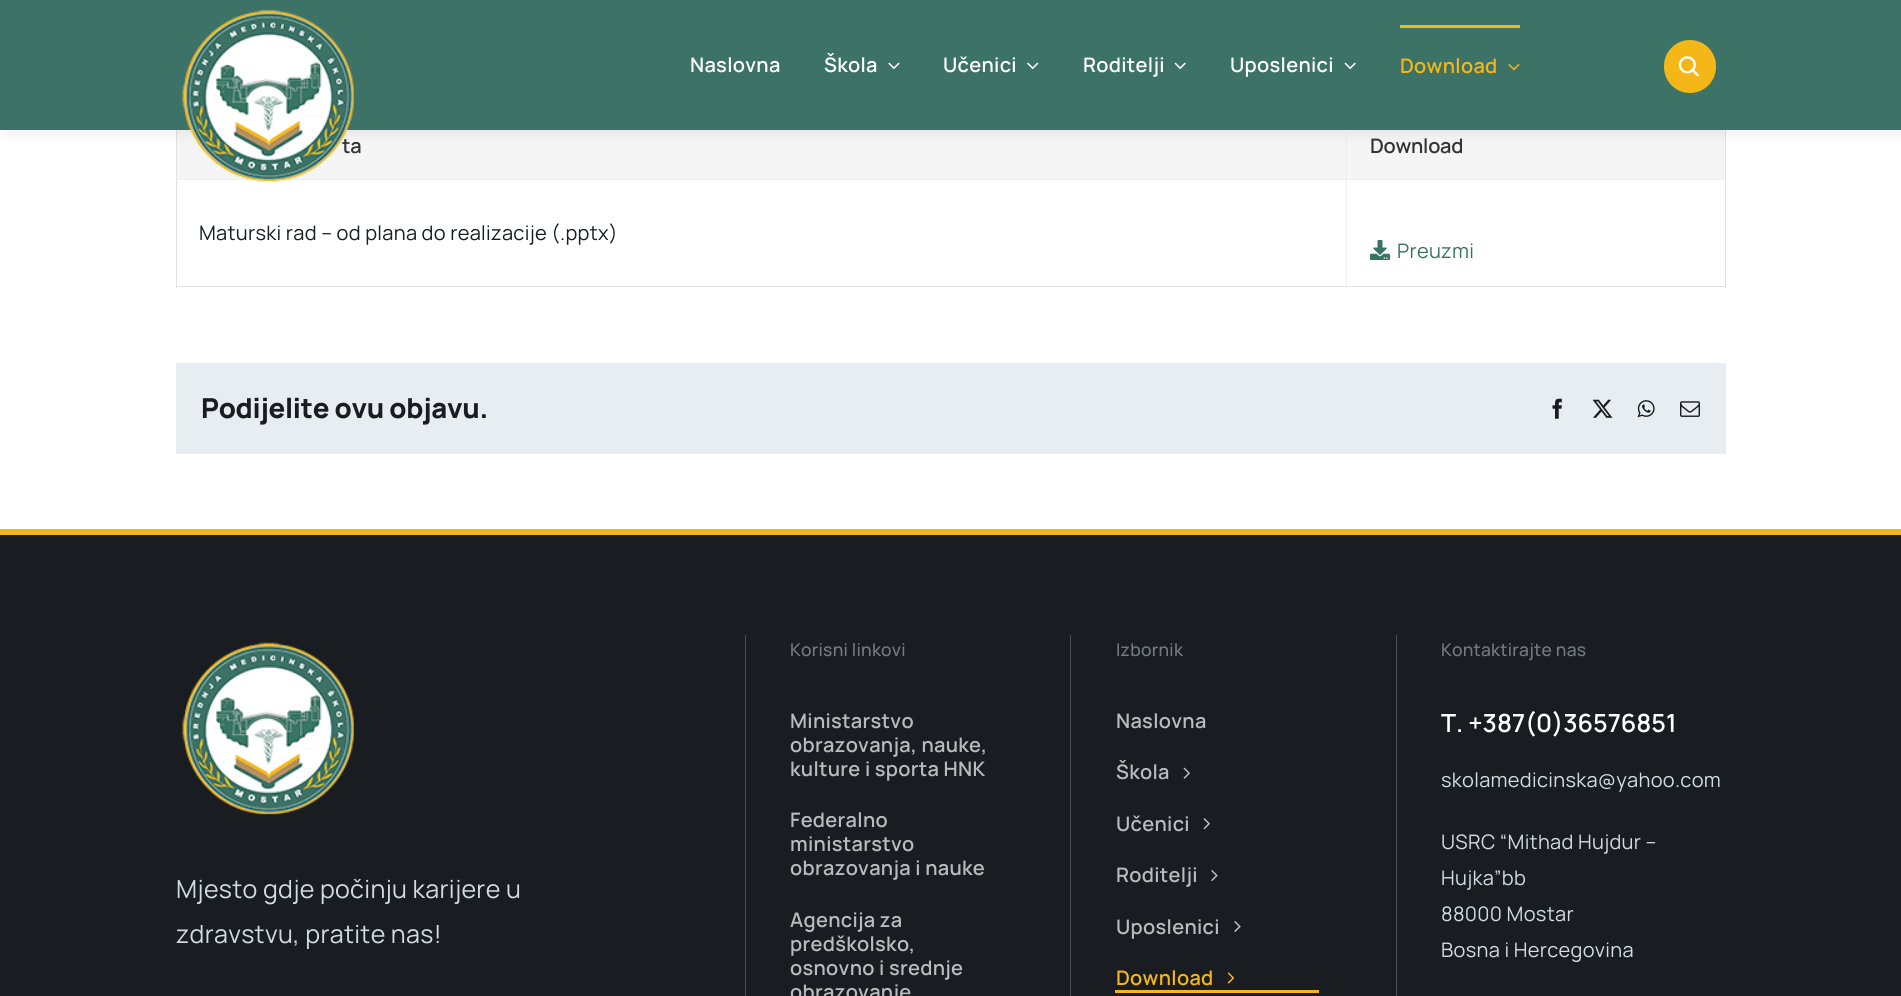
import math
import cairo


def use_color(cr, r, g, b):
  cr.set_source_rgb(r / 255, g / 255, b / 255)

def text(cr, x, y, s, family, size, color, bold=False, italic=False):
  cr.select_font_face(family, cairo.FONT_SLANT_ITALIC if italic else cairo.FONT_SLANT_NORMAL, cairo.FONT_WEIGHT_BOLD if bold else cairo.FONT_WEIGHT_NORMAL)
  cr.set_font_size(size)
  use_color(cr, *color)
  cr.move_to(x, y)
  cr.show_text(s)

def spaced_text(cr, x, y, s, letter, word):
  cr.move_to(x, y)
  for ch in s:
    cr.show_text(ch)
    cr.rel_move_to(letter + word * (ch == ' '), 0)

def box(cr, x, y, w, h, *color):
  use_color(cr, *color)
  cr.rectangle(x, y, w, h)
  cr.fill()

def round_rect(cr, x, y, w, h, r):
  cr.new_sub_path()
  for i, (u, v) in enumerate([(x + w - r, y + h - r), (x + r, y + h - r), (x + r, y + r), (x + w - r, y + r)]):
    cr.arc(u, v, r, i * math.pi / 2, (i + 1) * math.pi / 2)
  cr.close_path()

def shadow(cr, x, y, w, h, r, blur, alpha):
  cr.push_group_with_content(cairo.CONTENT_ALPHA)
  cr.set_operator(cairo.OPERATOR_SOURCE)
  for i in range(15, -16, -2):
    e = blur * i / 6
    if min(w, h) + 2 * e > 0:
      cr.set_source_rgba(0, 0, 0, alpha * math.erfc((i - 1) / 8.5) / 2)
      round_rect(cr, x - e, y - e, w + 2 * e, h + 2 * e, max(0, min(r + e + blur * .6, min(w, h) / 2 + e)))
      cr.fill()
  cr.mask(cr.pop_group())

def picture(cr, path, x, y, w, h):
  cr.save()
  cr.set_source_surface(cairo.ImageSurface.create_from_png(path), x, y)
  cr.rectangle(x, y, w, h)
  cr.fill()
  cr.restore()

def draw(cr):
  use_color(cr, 255, 255, 255)
  cr.paint()
  box(cr, 1725, 130, 1, 158, 225, 225, 225)
  box(cr, 176, 286, 1550, 1, 225, 225, 225)
  box(cr, 176, 130, 1, 158, 225, 225, 225)
  box(cr, 177, 130, 1548, 49, 245, 245, 245)
  box(cr, 1346, 179, 1, 109, 238, 238, 238)
  box(cr, 1346, 179, 380, 1, 238, 238, 238)
  box(cr, 1346, 130, 1, 50, 238, 238, 238)
  use_color(cr, 2, 3, 3)
  shadow(cr, 6, 6, 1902, 130, 0, 6, 0.05)
  box(cr, 0, 0, 1901, 130, 61, 114, 103)
  picture(cr, "img_02.png", 888, 62, 12, 8)
  picture(cr, "img_03.png", 1027, 62, 12, 8)
  picture(cr, "img_04.png", 1174, 62, 12, 8)
  picture(cr, "img_04.png", 1344, 62, 12, 8)
  box(cr, 1400, 25, 120, 3, 245, 183, 23)
  picture(cr, "img_05.png", 1508, 63, 12, 8)
  round_rect(cr, 1664, 40, 52, 53, 26)
  cr.fill()
  picture(cr, "img_06.png", 1678, 56, 21, 21)
  box(cr, 176, 179, 1172, 1, 238, 238, 238)
  picture(cr, "img_07.png", 1370, 240, 20, 20)
  box(cr, 176, 363, 1550, 91, 232, 237, 241)
  picture(cr, "img_08.png", 1552, 398, 10, 21)
  picture(cr, "img_09.png", 1592, 399, 21, 19)
  picture(cr, "img_10.png", 1637, 400, 18, 18)
  picture(cr, "img_11.png", 1680, 401, 20, 16)
  box(cr, 0, 535, 1901, 461, 25, 29, 33)
  box(cr, 0, 529, 1901, 6, 245, 183, 23)
  picture(cr, "img_12.png", 182, 642, 172, 173)
  box(cr, 745, 635, 1, 361, 69, 80, 90)
  box(cr, 1070, 635, 1, 361, 69, 80, 90)
  picture(cr, "img_13.png", 1183, 767, 7, 12)
  picture(cr, "img_14.png", 1203, 818, 7, 12)
  picture(cr, "img_15.png", 1211, 870, 7, 12)
  picture(cr, "img_16.png", 1234, 921, 7, 11)
  picture(cr, "img_17.png", 1227, 972, 8, 12)
  box(cr, 1115, 990, 204, 3, 245, 183, 23)
  box(cr, 1396, 635, 1, 361, 69, 80, 90)
  cr.select_font_face("Manrope SemiBold")
  cr.set_font_size(20)
  use_color(cr, 255, 255, 255)
  spaced_text(cr, 690, 72, "Naslovna", 0.3, 0)
  spaced_text(cr, 824, 72, "Škola", 0.3, 0)
  spaced_text(cr, 943, 72, "Učenici", 0.3, 0)
  spaced_text(cr, 1083, 72, "Roditelji", 0.3, 0)
  spaced_text(cr, 1230, 72, "Uposlenici", 0.3, 0)
  use_color(cr, 245, 183, 23)
  spaced_text(cr, 1400, 73, "Download", 0.3, 0)
  use_color(cr, 51, 51, 51)
  spaced_text(cr, 342, 153, "ta", -0.25, 0)
  picture(cr, "img_01.png", 182, 9, 172, 173)
  spaced_text(cr, 1370, 153, "Download", -0.25, 0)
  cr.select_font_face("Manrope")
  use_color(cr, 25, 29, 33)
  spaced_text(cr, 199, 240, "Maturski rad – od plana do realizacije (.pptx)", 0.3, 0)
  use_color(cr, 55, 116, 98)
  spaced_text(cr, 1397, 258, "Preuzmi", 0.3, 0)
  cr.select_font_face("Manrope ExtraBold")
  cr.set_font_size(27.5)
  use_color(cr, 25, 29, 33)
  spaced_text(cr, 201, 418, "Podijelite ovu objavu.", -0.25, 0)
  cr.select_font_face("Manrope")
  cr.set_font_size(25)
  use_color(cr, 210, 219, 226)
  spaced_text(cr, 176, 898, "Mjesto gdje počinju karijere u", 0.3, 0)
  spaced_text(cr, 176, 943, "zdravstvu, pratite nas!", 0.3, 0)
  cr.select_font_face("Manrope Medium")
  cr.set_font_size(17.5)
  use_color(cr, 117, 124, 129)
  spaced_text(cr, 790, 656, "Korisni linkovi", 0.25, 0)
  cr.select_font_face("Manrope SemiBold")
  cr.set_font_size(20)
  use_color(cr, 186, 187, 188)
  spaced_text(cr, 790, 728, "Ministarstvo", 0.3, 0)
  spaced_text(cr, 790, 752, "obrazovanja, nauke,", 0.3, 0)
  spaced_text(cr, 790, 776, "kulture i sporta HNK", 0.3, 0)
  spaced_text(cr, 790, 827, "Federalno", 0.3, 0)
  spaced_text(cr, 790, 851, "ministarstvo", 0.3, 0)
  spaced_text(cr, 790, 875, "obrazovanja i nauke", 0.3, 0)
  spaced_text(cr, 790, 927, "Agencija za", 0.3, 0)
  spaced_text(cr, 790, 951, "predškolsko,", 0.3, 0)
  spaced_text(cr, 790, 975, "osnovno i srednje", 0.3, 0)
  spaced_text(cr, 790, 999, "obrazovanje", 0.3, 0)
  cr.select_font_face("Manrope Medium")
  cr.set_font_size(17.5)
  use_color(cr, 117, 124, 129)
  spaced_text(cr, 1116, 656, "Izbornik", 0.25, 0)
  cr.select_font_face("Manrope SemiBold")
  cr.set_font_size(20)
  use_color(cr, 186, 187, 188)
  spaced_text(cr, 1116, 728, "Naslovna", 0.3, 0)
  spaced_text(cr, 1116, 779, "Škola", 0.3, 0)
  spaced_text(cr, 1116, 831, "Učenici", 0.3, 0)
  spaced_text(cr, 1116, 882, "Roditelji", 0.3, 0)
  spaced_text(cr, 1116, 934, "Uposlenici", 0.3, 0)
  use_color(cr, 245, 183, 23)
  spaced_text(cr, 1116, 985, "Download", 0.3, 0)
  cr.select_font_face("Manrope Medium")
  cr.set_font_size(17.5)
  use_color(cr, 117, 124, 129)
  spaced_text(cr, 1441, 656, "Kontaktirajte nas", 0.25, 0)
  text(cr, 1441, 732, "T. +387(0)36576851", "Manrope SemiBold", 25, (255, 255, 255))
  cr.select_font_face("Manrope")
  cr.set_font_size(20)
  use_color(cr, 210, 219, 226)
  spaced_text(cr, 1441, 787, "skolamedicinska@yahoo.com", 0.3, 0)
  spaced_text(cr, 1441, 849, "USRC “Mithad Hujdur –", 0.3, 0)
  spaced_text(cr, 1441, 885, "Hujka”bb", 0.3, 0)
  spaced_text(cr, 1441, 921, "88000 Mostar", 0.3, 0)
  spaced_text(cr, 1441, 957, "Bosna i Hercegovina", 0.3, 0)


surface = cairo.ImageSurface(cairo.FORMAT_RGB24, 1901, 996)
cr = cairo.Context(surface)
options = cairo.FontOptions()
options.set_hint_metrics(cairo.HINT_METRICS_OFF)
options.set_hint_style(cairo.HINT_STYLE_NONE)
cr.set_font_options(options)
cr.set_miter_limit(4)
draw(cr)
surface.write_to_png("out.png")
